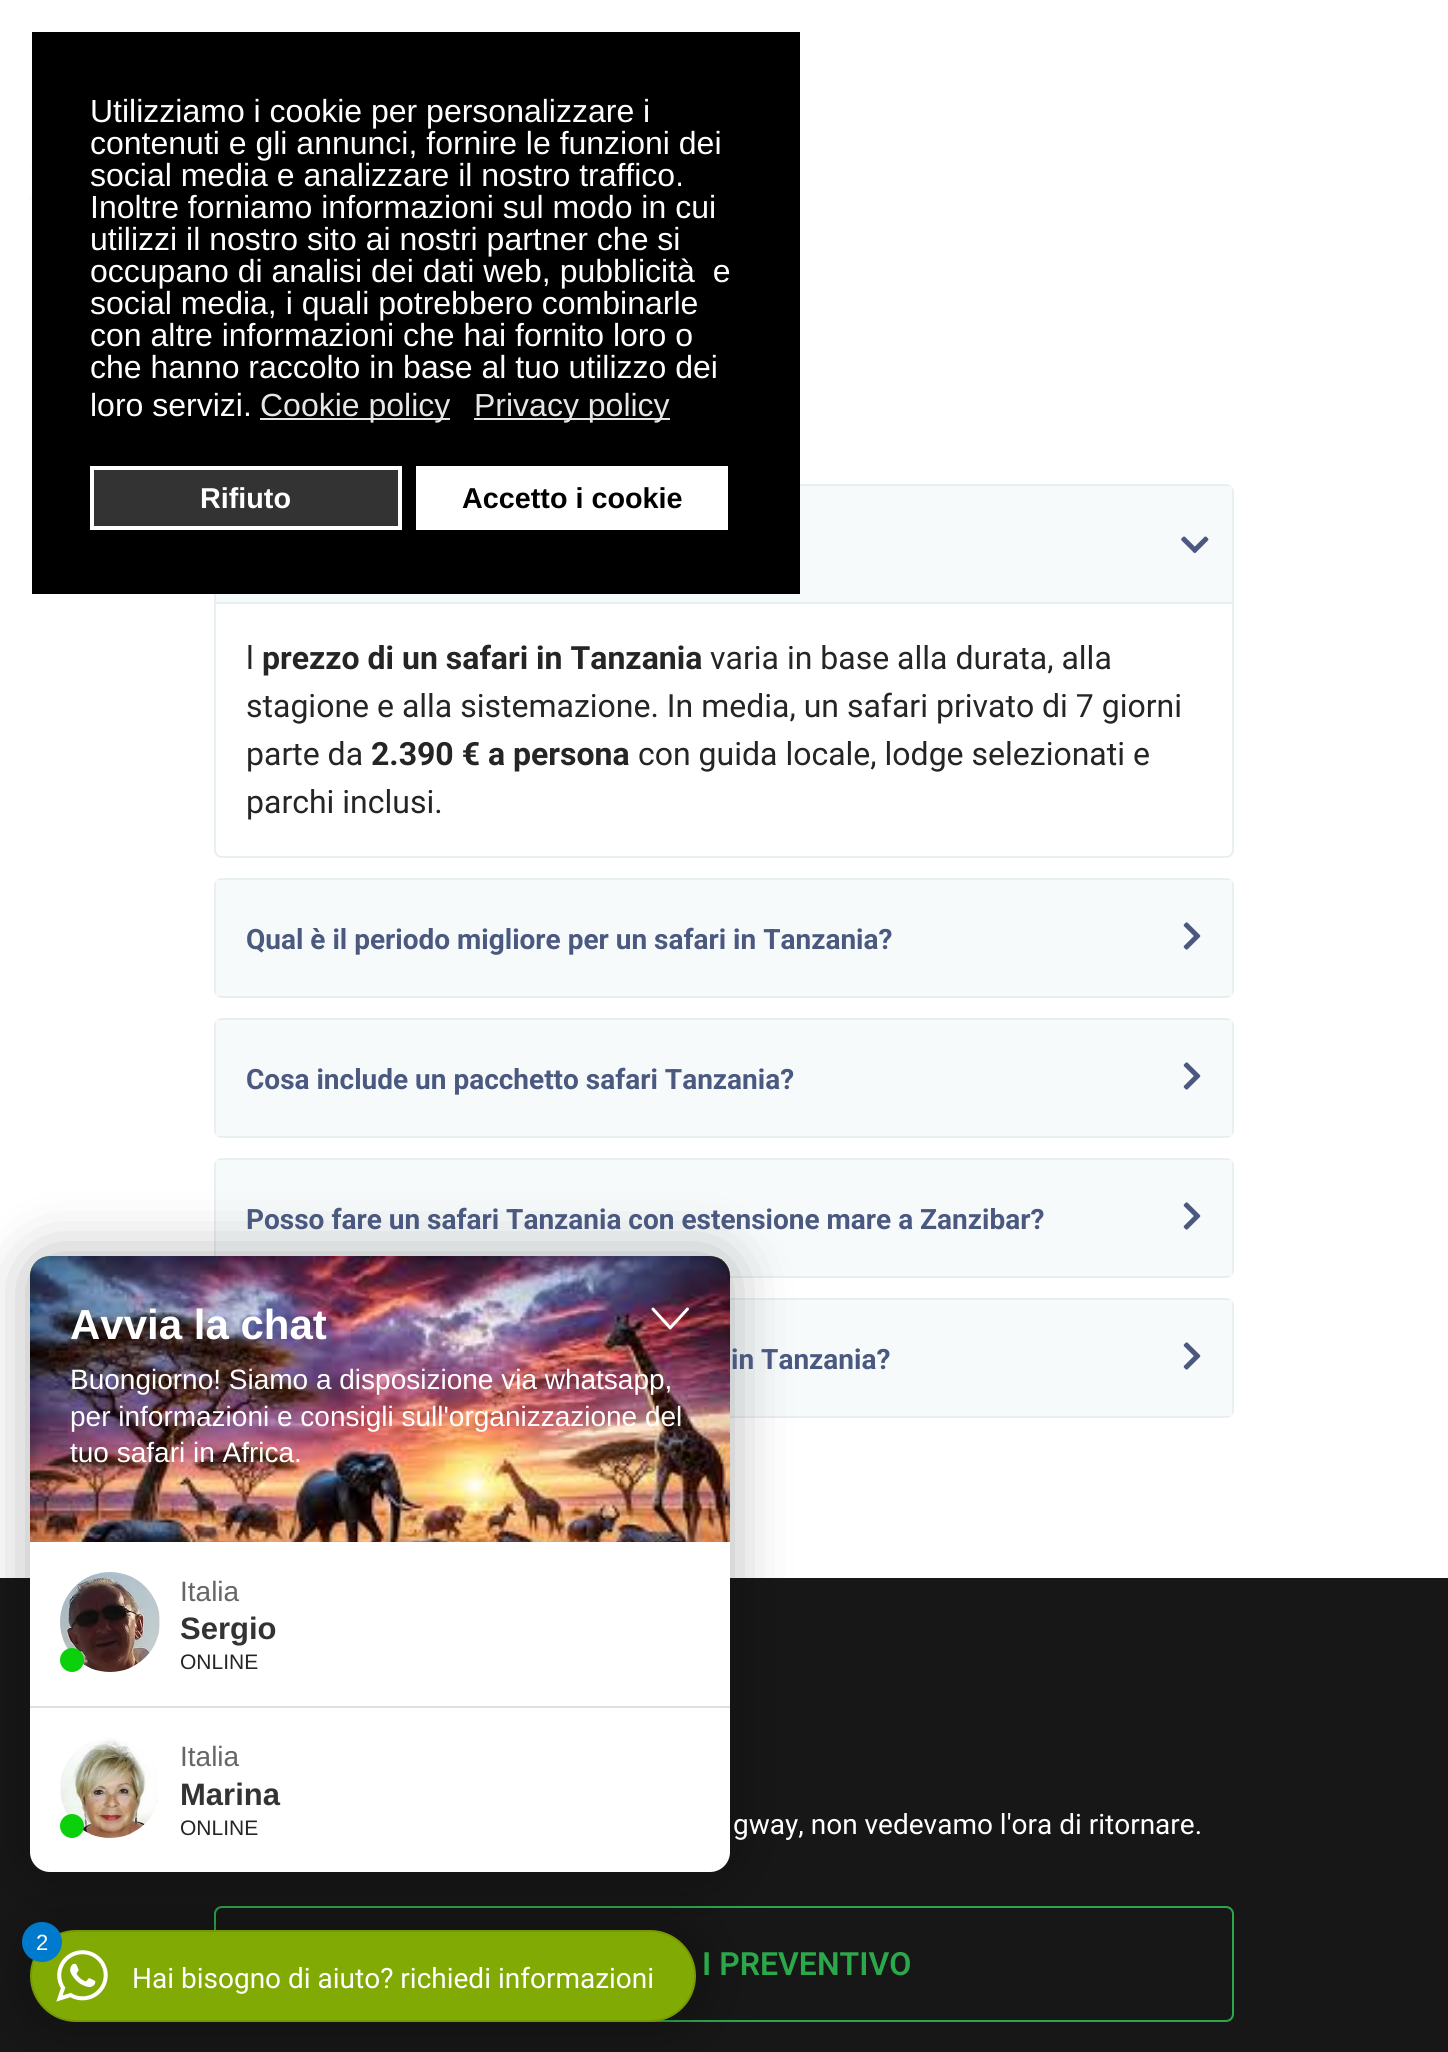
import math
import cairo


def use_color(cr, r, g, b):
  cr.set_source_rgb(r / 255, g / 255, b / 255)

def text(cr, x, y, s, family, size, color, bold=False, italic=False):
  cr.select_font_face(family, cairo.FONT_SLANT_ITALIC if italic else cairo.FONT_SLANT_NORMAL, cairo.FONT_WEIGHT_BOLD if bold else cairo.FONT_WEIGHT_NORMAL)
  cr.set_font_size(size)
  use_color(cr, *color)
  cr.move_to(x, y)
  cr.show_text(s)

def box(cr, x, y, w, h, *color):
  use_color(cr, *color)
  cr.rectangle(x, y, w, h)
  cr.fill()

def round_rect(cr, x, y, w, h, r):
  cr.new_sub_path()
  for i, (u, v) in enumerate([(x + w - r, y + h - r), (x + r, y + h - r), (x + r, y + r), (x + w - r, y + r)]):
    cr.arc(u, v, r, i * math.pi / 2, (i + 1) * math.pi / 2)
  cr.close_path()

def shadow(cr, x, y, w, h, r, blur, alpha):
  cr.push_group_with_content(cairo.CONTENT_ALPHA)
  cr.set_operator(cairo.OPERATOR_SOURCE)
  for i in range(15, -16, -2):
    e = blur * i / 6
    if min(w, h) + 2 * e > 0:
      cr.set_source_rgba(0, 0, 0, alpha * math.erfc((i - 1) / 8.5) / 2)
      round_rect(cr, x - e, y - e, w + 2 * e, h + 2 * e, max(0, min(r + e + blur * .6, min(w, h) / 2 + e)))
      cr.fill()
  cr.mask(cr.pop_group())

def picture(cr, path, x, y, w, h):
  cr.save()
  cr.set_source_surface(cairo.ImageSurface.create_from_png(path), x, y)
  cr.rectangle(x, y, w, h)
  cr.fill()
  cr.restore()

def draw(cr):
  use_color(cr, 255, 255, 255)
  cr.paint()
  round_rect(cr, 215, 485, 1018, 372, 7)
  use_color(cr, 232, 239, 241)
  cr.stroke()
  box(cr, 216, 486, 1016, 116, 246, 250, 251)
  box(cr, 32, 32, 768, 562, 0, 0, 0)
  box(cr, 260, 418, 190, 2, 230, 230, 230)
  box(cr, 474, 418, 196, 2, 230, 230, 230)
  use_color(cr, 51, 51, 51)
  cr.rectangle(92, 468, 308, 60)
  cr.fill_preserve()
  use_color(cr, 255, 255, 255)
  cr.set_line_width(4)
  cr.stroke()
  box(cr, 416, 466, 312, 64, 255, 255, 255)
  picture(cr, "img_01.png", 30, 165, 2, 36)
  picture(cr, "img_02.png", 1181, 536, 28, 18)
  box(cr, 216, 602, 1016, 2, 232, 239, 241)
  round_rect(cr, 215, 879, 1018, 118, 7)
  cr.set_line_width(2)
  cr.stroke()
  box(cr, 216, 880, 1016, 116, 246, 250, 251)
  picture(cr, "img_03.png", 1183, 922, 18, 28)
  round_rect(cr, 215, 1019, 1018, 118, 7)
  use_color(cr, 232, 239, 241)
  cr.stroke()
  box(cr, 216, 1020, 1016, 116, 246, 250, 251)
  picture(cr, "img_03.png", 1183, 1062, 18, 28)
  round_rect(cr, 215, 1159, 1018, 118, 7)
  use_color(cr, 232, 239, 241)
  cr.stroke()
  box(cr, 216, 1160, 1016, 116, 246, 250, 251)
  picture(cr, "img_03.png", 1183, 1202, 18, 28)
  round_rect(cr, 215, 1299, 1018, 118, 7)
  use_color(cr, 232, 239, 241)
  cr.stroke()
  box(cr, 730, 1300, 502, 116, 246, 250, 251)
  picture(cr, "img_03.png", 1183, 1342, 18, 28)
  box(cr, 0, 1578, 1448, 474, 23, 23, 23)
  round_rect(cr, 215, 1907, 1018, 114, 7)
  use_color(cr, 43, 168, 74)
  cr.stroke()
  use_color(cr, 0, 0, 0)
  shadow(cr, 30, 1930, 666, 92, 46, 30, 0.3)
  use_color(cr, 130, 170, 5)
  round_rect(cr, 30, 1930, 666, 92, 46)
  cr.fill()
  picture(cr, "img_08.png", 56, 1950, 52, 52)
  round_rect(cr, 31, 1931, 664, 90, 45)
  cr.set_source_rgba(0, 0, 0, 0.1)
  cr.stroke()
  use_color(cr, 0, 122, 204)
  cr.arc(42, 1942, 20, 0, 2 * math.pi)
  cr.fill()
  use_color(cr, 0, 0, 0)
  shadow(cr, 30, 1256, 700, 616, 20, 30, 0.3)
  use_color(cr, 255, 255, 255)
  round_rect(cr, 30, 1256, 700, 616, 20)
  cr.fill()
  use_color(cr, 130, 170, 5)
  cr.new_path()
  cr.move_to(50, 1256)
  cr.line_to(710, 1256)
  cr.curve_to(721, 1256, 730, 1265, 730, 1276)
  cr.line_to(730, 1542)
  cr.line_to(30, 1542)
  cr.line_to(30, 1276)
  cr.curve_to(30, 1265, 39, 1256, 50, 1256)
  cr.close_path()
  cr.fill()
  picture(cr, "img_04.png", 30, 1256, 700, 286)
  picture(cr, "img_05.png", 651, 1307, 38, 23)
  box(cr, 30, 1706, 700, 2, 224, 224, 224)
  picture(cr, "img_06.png", 60, 1572, 100, 100)
  use_color(cr, 11, 209, 12)
  cr.arc(72, 1660, 12, 0, 2 * math.pi)
  cr.fill()
  picture(cr, "img_07.png", 60, 1738, 98, 100)
  cr.arc(72, 1826, 12, 0, 2 * math.pi)
  cr.fill()
  text(cr, 90, 122, "Utilizziamo i cookie per personalizzare i", "Liberation Sans", 32, (255, 255, 255))
  text(cr, 90, 154, "contenuti e gli annunci, fornire le funzioni dei", "Liberation Sans", 32, (255, 255, 255))
  text(cr, 90, 186, "social media e analizzare il nostro traffico.", "Liberation Sans", 32, (255, 255, 255))
  text(cr, 90, 218, "Inoltre forniamo informazioni sul modo in cui", "Liberation Sans", 32, (255, 255, 255))
  text(cr, 90, 250, "utilizzi il nostro sito ai nostri partner che si", "Liberation Sans", 32, (255, 255, 255))
  text(cr, 90, 282, "occupano di analisi dei dati web, pubblicità  e", "Liberation Sans", 32, (255, 255, 255))
  text(cr, 90, 314, "social media, i quali potrebbero combinarle", "Liberation Sans", 32, (255, 255, 255))
  text(cr, 90, 346, "con altre informazioni che hai fornito loro o", "Liberation Sans", 32, (255, 255, 255))
  text(cr, 90, 378, "che hanno raccolto in base al tuo utilizzo dei", "Liberation Sans", 32, (255, 255, 255))
  text(cr, 90, 416, "loro servizi.", "Liberation Sans", 32, (255, 255, 255))
  text(cr, 260, 416, "Cookie policy", "Liberation Sans", 32, (230, 230, 230))
  text(cr, 474, 416, "Privacy policy", "Liberation Sans", 32, (230, 230, 230))
  text(cr, 200, 508, "Rifiuto", "Liberation Sans", 28.75, (255, 255, 255), bold=True)
  text(cr, 462, 508, "Accetto i cookie", "Liberation Sans", 28.75, (0, 0, 0), bold=True)
  text(cr, 246, 669, "l", "Roboto", 32, (37, 37, 37))
  text(cr, 262, 669, "prezzo di un safari in Tanzania", "Roboto", 32, (37, 37, 37), bold=True)
  text(cr, 710, 669, "varia in base alla durata, alla", "Roboto", 32, (37, 37, 37))
  text(cr, 246, 717, "stagione e alla sistemazione. In media, un safari privato di 7 giorni", "Roboto", 32, (37, 37, 37))
  text(cr, 246, 765, "parte da", "Roboto", 32, (37, 37, 37))
  text(cr, 371, 765, "2.390 € a persona", "Roboto", 32, (37, 37, 37), bold=True)
  text(cr, 638, 765, "con guida locale, lodge selezionati e", "Roboto", 32, (37, 37, 37))
  text(cr, 246, 813, "parchi inclusi.", "Roboto", 32, (37, 37, 37))
  text(cr, 246, 949, "Qual è il periodo migliore per un safari in Tanzania?", "Roboto", 28, (75, 89, 129), bold=True)
  text(cr, 246, 1089, "Cosa include un pacchetto safari Tanzania?", "Roboto", 28, (75, 89, 129), bold=True)
  text(cr, 246, 1229, "Posso fare un safari Tanzania con estensione mare a Zanzibar?", "Roboto", 28, (75, 89, 129), bold=True)
  text(cr, 731, 1369, "in Tanzania?", "Roboto", 28, (75, 89, 129), bold=True)
  text(cr, 733, 1834, "gway, non vedevamo l'ora di ritornare.", "Roboto", 28, (255, 255, 255))
  text(cr, 702, 1975, "I PREVENTIVO", "Roboto SemiBold", 32, (43, 168, 74))
  text(cr, 70, 1339, "Avvia la chat", "Liberation Sans", 42, (255, 255, 255), bold=True)
  text(cr, 70, 1389, "Buongiorno! Siamo a disposizione via whatsapp,", "Liberation Sans", 28, (255, 255, 255))
  text(cr, 70, 1426, "per informazioni e consigli sull'organizzazione del", "Liberation Sans", 28, (255, 255, 255))
  text(cr, 70, 1462, "tuo safari in Africa.", "Liberation Sans", 28, (255, 255, 255))
  text(cr, 180, 1601, "Italia", "Liberation Sans", 28, (102, 102, 102))
  text(cr, 180, 1639, "Sergio", "Liberation Sans", 31, (51, 51, 51), bold=True)
  text(cr, 180, 1669, "ONLINE", "Liberation Sans", 21, (37, 37, 37))
  text(cr, 180, 1766, "Italia", "Liberation Sans", 28, (102, 102, 102))
  text(cr, 180, 1805, "Marina", "Liberation Sans", 31, (51, 51, 51), bold=True)
  text(cr, 180, 1835, "ONLINE", "Liberation Sans", 21, (37, 37, 37))
  text(cr, 36, 1950, "2", "Liberation Sans", 22, (255, 255, 255))
  text(cr, 132, 1988, "Hai bisogno di aiuto? richiedi informazioni", "Roboto", 28, (255, 255, 255))


surface = cairo.ImageSurface(cairo.FORMAT_RGB24, 1448, 2052)
cr = cairo.Context(surface)
options = cairo.FontOptions()
options.set_hint_metrics(cairo.HINT_METRICS_OFF)
options.set_hint_style(cairo.HINT_STYLE_NONE)
cr.set_font_options(options)
cr.set_miter_limit(4)
draw(cr)
surface.write_to_png("out.png")
